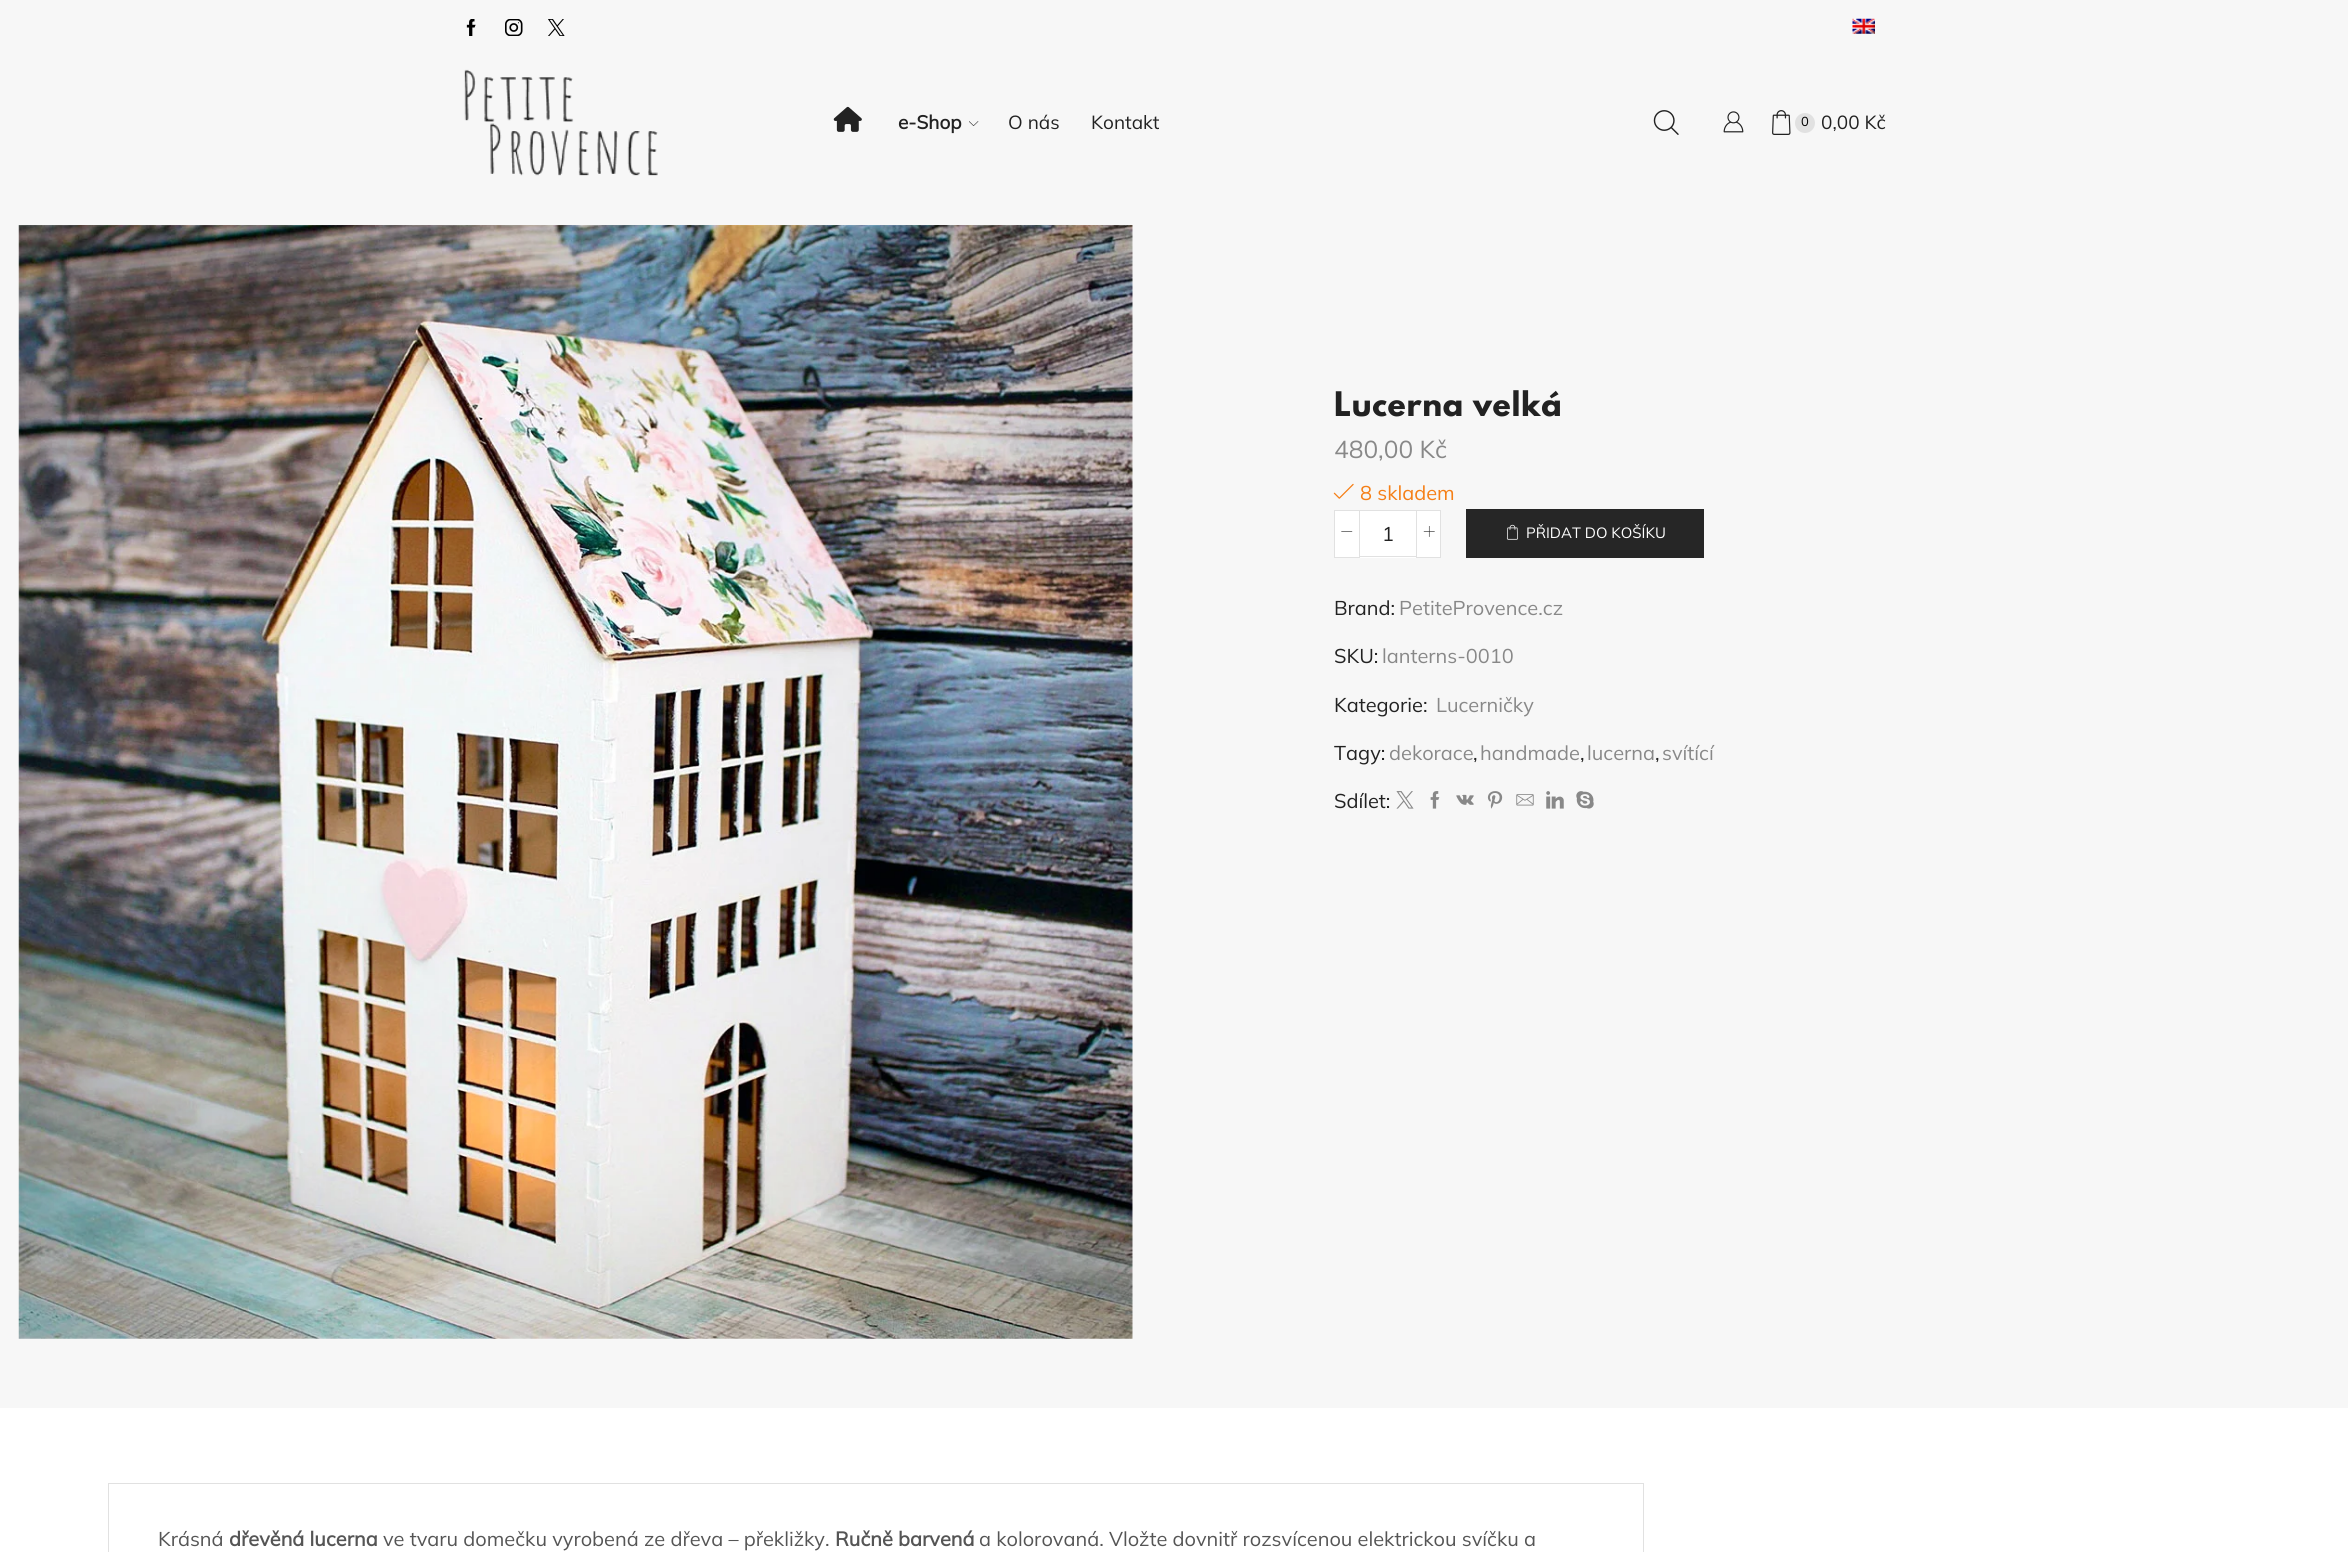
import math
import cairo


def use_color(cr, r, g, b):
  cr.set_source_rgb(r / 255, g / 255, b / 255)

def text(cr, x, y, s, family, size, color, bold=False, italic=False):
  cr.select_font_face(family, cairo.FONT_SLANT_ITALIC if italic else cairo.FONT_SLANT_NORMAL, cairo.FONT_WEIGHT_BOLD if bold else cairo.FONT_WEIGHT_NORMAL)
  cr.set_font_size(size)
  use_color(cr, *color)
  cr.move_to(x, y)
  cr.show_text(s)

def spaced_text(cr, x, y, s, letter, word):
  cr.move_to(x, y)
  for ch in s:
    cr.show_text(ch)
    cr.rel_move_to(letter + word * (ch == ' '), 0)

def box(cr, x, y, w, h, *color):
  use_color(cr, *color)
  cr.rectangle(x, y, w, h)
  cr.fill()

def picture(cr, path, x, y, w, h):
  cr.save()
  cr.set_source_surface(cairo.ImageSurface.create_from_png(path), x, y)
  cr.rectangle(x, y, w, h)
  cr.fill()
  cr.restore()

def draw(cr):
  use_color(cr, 255, 255, 255)
  cr.paint()
  box(cr, 0, 0, 2348, 1408, 247, 247, 247)
  picture(cr, "img_01.png", 466, 19, 10, 17)
  picture(cr, "img_02.png", 505, 19, 18, 17)
  picture(cr, "img_03.png", 548, 19, 17, 17)
  picture(cr, "img_04.png", 1852, 18, 23, 16)
  picture(cr, "img_05.png", 464, 69, 194, 107)
  picture(cr, "img_06.png", 833, 106, 29, 26)
  picture(cr, "img_07.png", 969, 121, 10, 5)
  picture(cr, "img_08.png", 1653, 110, 26, 25)
  picture(cr, "img_09.png", 1723, 111, 21, 22)
  picture(cr, "img_10.png", 1772, 110, 19, 25)
  use_color(cr, 225, 225, 225)
  cr.arc(1805, 123, 10, 0, 2 * math.pi)
  cr.fill()
  picture(cr, "img_11.png", 18, 225, 1115, 1114)
  picture(cr, "img_12.png", 1333, 483, 21, 16)
  use_color(cr, 255, 255, 255)
  cr.rectangle(1334.5, 510.5, 25, 47)
  cr.fill_preserve()
  use_color(cr, 225, 225, 225)
  cr.set_line_width(1)
  cr.stroke()
  picture(cr, "img_13.png", 1341, 531, 12, 1)
  box(cr, 1360, 511, 56, 47, 255, 255, 255)
  box(cr, 1360, 510, 56, 1, 225, 225, 225)
  box(cr, 1360, 556, 56, 1, 225, 225, 225)
  use_color(cr, 255, 255, 255)
  cr.rectangle(1416.5, 510.5, 24, 47)
  cr.fill_preserve()
  use_color(cr, 225, 225, 225)
  cr.stroke()
  picture(cr, "img_14.png", 1423, 526, 12, 11)
  box(cr, 1466, 509, 238, 49, 38, 38, 38)
  picture(cr, "img_15.png", 1506, 524, 12, 16)
  picture(cr, "img_16.png", 1396, 791, 18, 18)
  picture(cr, "img_17.png", 1430, 791, 10, 18)
  picture(cr, "img_18.png", 1456, 794, 18, 11)
  picture(cr, "img_19.png", 1487, 791, 16, 18)
  picture(cr, "img_20.png", 1516, 794, 18, 12)
  picture(cr, "img_21.png", 1546, 791, 18, 18)
  picture(cr, "img_22.png", 1576, 791, 18, 18)
  cr.rectangle(108.5, 1483.5, 1535, 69)
  use_color(cr, 225, 225, 225)
  cr.stroke()
  text(cr, 898, 129, "e-Shop", "Mulish", 19, (34, 34, 34), bold=True)
  text(cr, 1008, 129, "O nás", "Mulish ExtraLight", 19, (34, 34, 34))
  text(cr, 1091, 129, "Kontakt", "Mulish ExtraLight", 19, (34, 34, 34))
  text(cr, 1801, 126, "0", "Mulish ExtraLight", 13, (0, 0, 0))
  text(cr, 1821, 129, "0,00 Kč", "Mulish ExtraLight", 19, (34, 34, 34))
  cr.select_font_face("League Spartan", cairo.FONT_SLANT_NORMAL, cairo.FONT_WEIGHT_BOLD)
  cr.set_font_size(30)
  spaced_text(cr, 1334, 416, "Lucerna velká", 0.75, 0)
  text(cr, 1334, 458, "480,00 Kč", "Mulish ExtraLight", 24.5, (136, 136, 136))
  text(cr, 1360, 500, "8 skladem", "Mulish ExtraLight", 20, (245, 127, 23))
  text(cr, 1382, 541, "1", "Mulish ExtraLight", 20, (34, 34, 34))
  text(cr, 1526, 538, "PŘIDAT DO KOŠÍKU", "Mulish ExtraLight", 14.9, (255, 255, 255))
  text(cr, 1334, 615, "Brand:", "Mulish ExtraLight", 20, (34, 34, 34))
  text(cr, 1399, 615, "PetiteProvence.cz", "Mulish ExtraLight", 20, (136, 136, 136))
  text(cr, 1334, 663, "SKU:", "Mulish ExtraLight", 20, (34, 34, 34))
  text(cr, 1382, 663, "lanterns-0010", "Mulish ExtraLight", 20, (136, 136, 136))
  text(cr, 1334, 712, "Kategorie:", "Mulish ExtraLight", 20, (34, 34, 34))
  text(cr, 1436, 712, "Lucerničky", "Mulish ExtraLight", 20, (136, 136, 136))
  text(cr, 1334, 760, "Tagy:", "Mulish ExtraLight", 20, (34, 34, 34))
  text(cr, 1389, 760, "dekorace", "Mulish ExtraLight", 20, (136, 136, 136))
  text(cr, 1473, 760, ",", "Mulish ExtraLight", 20, (34, 34, 34))
  text(cr, 1480, 760, "handmade", "Mulish ExtraLight", 20, (136, 136, 136))
  text(cr, 1580, 760, ",", "Mulish ExtraLight", 20, (34, 34, 34))
  text(cr, 1587, 760, "lucerna", "Mulish ExtraLight", 20, (136, 136, 136))
  text(cr, 1655, 760, ",", "Mulish ExtraLight", 20, (34, 34, 34))
  text(cr, 1662, 760, "svítící", "Mulish ExtraLight", 20, (136, 136, 136))
  text(cr, 1334, 808, "Sdílet:", "Mulish ExtraLight", 20, (34, 34, 34))
  text(cr, 158, 1546, "Krásná", "Mulish ExtraLight", 20, (85, 85, 85))
  text(cr, 229, 1546, "dřevěná lucerna", "Mulish", 20, (85, 85, 85), bold=True)
  text(cr, 383, 1546, "ve tvaru domečku vyrobená ze dřeva – překližky.", "Mulish ExtraLight", 20, (85, 85, 85))
  text(cr, 835, 1546, "Ručně barvená", "Mulish", 20, (85, 85, 85), bold=True)
  text(cr, 979, 1546, "a kolorovaná. Vložte dovnitř rozsvícenou elektrickou svíčku a", "Mulish ExtraLight", 20, (85, 85, 85))


surface = cairo.ImageSurface(cairo.FORMAT_RGB24, 2348, 1552)
cr = cairo.Context(surface)
options = cairo.FontOptions()
options.set_hint_metrics(cairo.HINT_METRICS_OFF)
options.set_hint_style(cairo.HINT_STYLE_NONE)
cr.set_font_options(options)
cr.set_miter_limit(4)
draw(cr)
surface.write_to_png("out.png")
